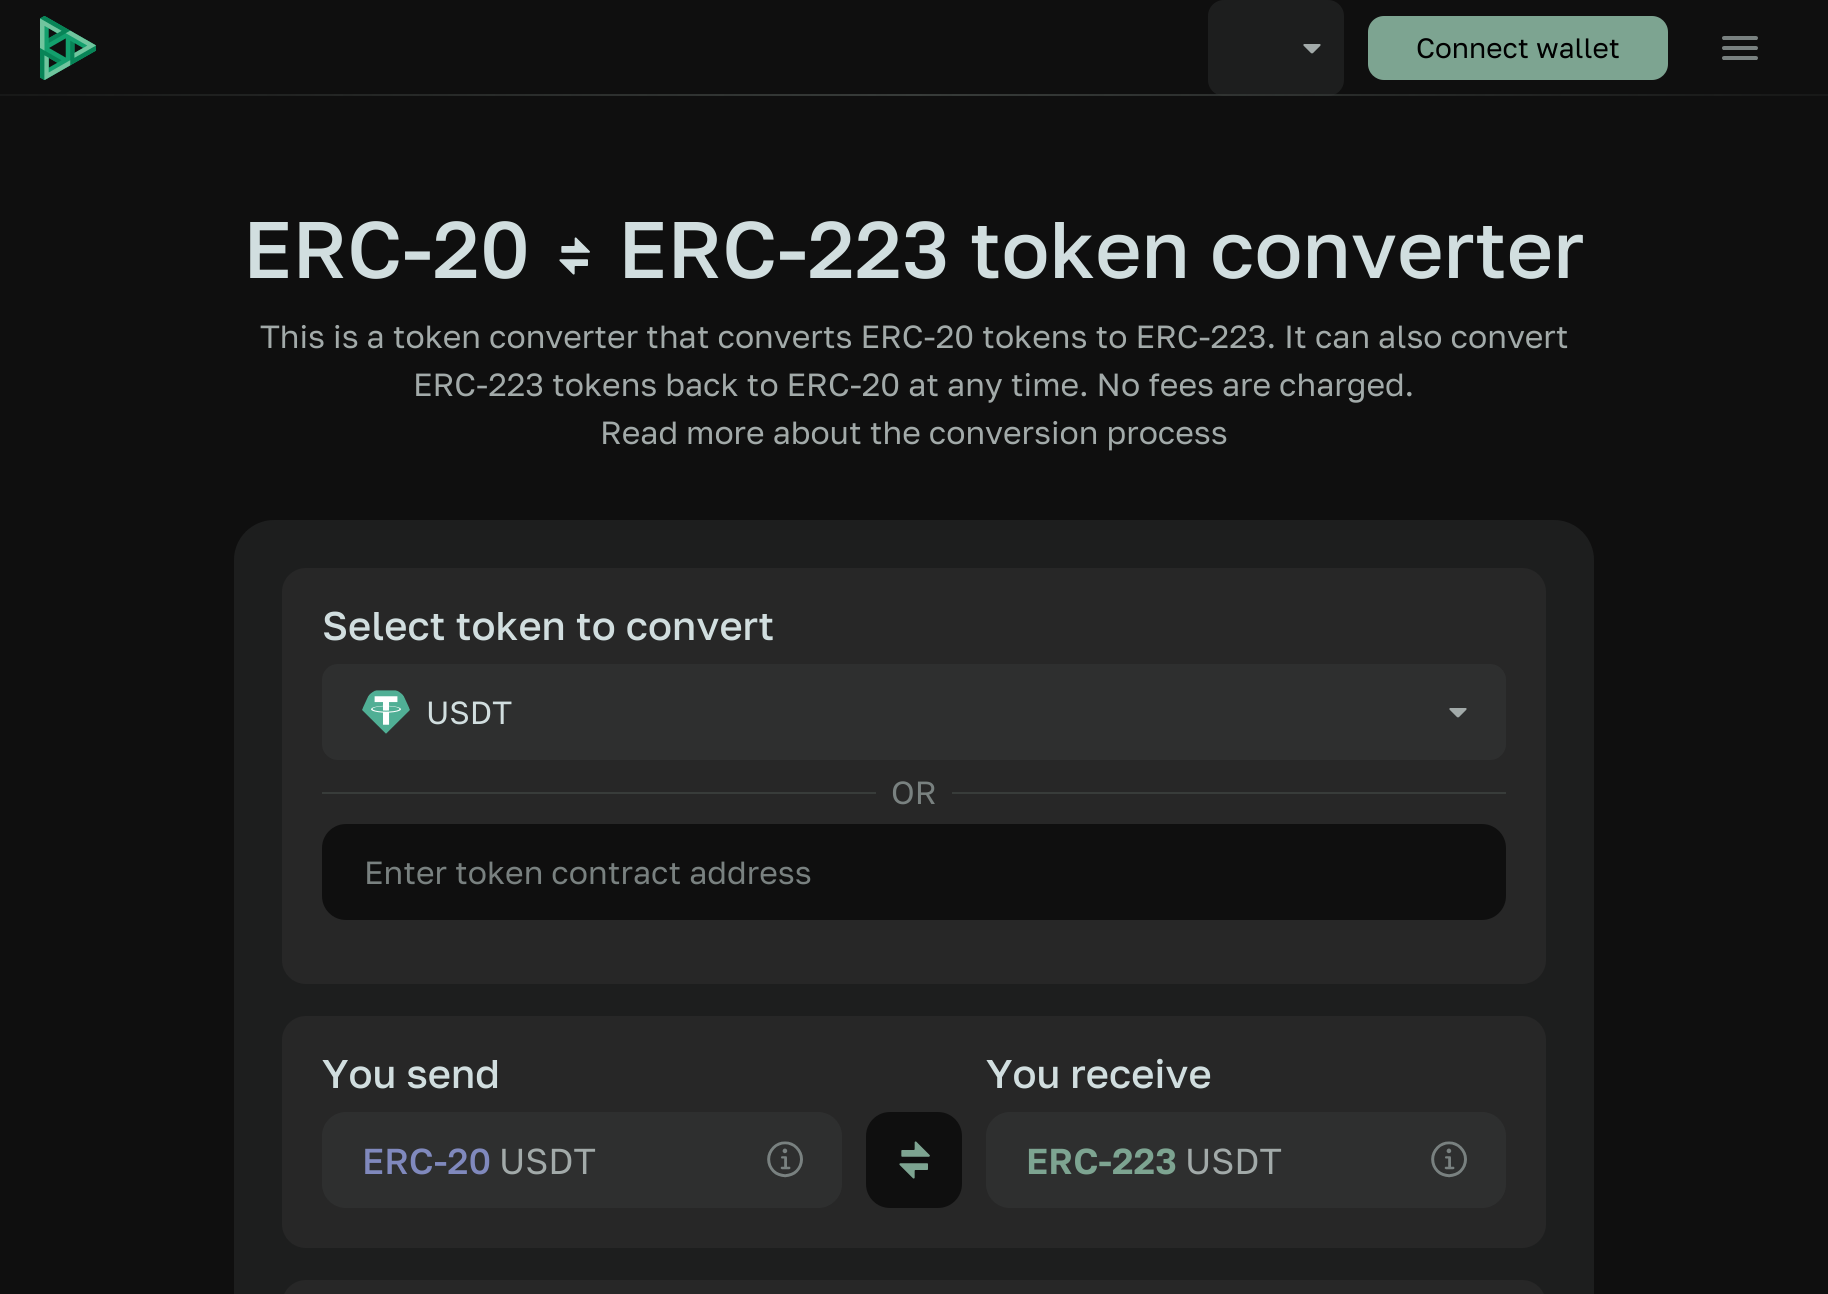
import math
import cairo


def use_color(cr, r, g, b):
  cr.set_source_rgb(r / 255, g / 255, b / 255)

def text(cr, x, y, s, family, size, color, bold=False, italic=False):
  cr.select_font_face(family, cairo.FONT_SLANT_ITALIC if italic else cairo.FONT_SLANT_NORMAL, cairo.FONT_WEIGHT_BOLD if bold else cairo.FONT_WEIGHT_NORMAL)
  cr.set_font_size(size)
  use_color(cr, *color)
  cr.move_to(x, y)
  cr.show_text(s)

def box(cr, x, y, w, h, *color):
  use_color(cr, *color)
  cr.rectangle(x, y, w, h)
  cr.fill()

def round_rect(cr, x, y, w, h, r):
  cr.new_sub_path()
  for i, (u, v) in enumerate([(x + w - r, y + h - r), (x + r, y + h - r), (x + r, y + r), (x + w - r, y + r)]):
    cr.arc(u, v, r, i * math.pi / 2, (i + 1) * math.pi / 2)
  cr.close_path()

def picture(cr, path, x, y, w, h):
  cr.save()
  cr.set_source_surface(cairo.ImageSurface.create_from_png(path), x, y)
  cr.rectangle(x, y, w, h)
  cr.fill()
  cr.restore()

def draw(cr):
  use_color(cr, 15, 15, 15)
  cr.paint()
  picture(cr, "img_01.png", 40, 16, 56, 64)
  use_color(cr, 29, 30, 30)
  round_rect(cr, 1208, 0, 136, 96, 16)
  cr.fill()
  picture(cr, "img_02.png", 1303, 44, 18, 10)
  use_color(cr, 125, 164, 145)
  round_rect(cr, 1368, 16, 300, 64, 16)
  cr.fill()
  picture(cr, "img_03.png", 1722, 36, 36, 24)
  gradient = cairo.LinearGradient(0, 95, 1828, 95)
  gradient.add_color_stop_rgba(0, 0.22, 0.235, 0.227, 0.2)
  gradient.add_color_stop_rgba(0.5, 0.22, 0.235, 0.227, 1)
  gradient.add_color_stop_rgba(1, 0.22, 0.235, 0.227, 0.2)
  cr.set_source(gradient)
  cr.rectangle(0, 94, 1828, 2)
  cr.fill()
  picture(cr, "img_04.png", 559, 237, 31, 38)
  use_color(cr, 29, 30, 30)
  round_rect(cr, 234, 520, 1360, 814, 40)
  cr.fill()
  use_color(cr, 39, 39, 39)
  round_rect(cr, 282, 568, 1264, 416, 24)
  cr.fill()
  use_color(cr, 46, 47, 47)
  round_rect(cr, 322, 664, 1184, 96, 16)
  cr.fill()
  picture(cr, "img_05.png", 362, 690, 48, 44)
  picture(cr, "img_06.png", 1449, 708, 18, 10)
  box(cr, 322, 792, 1184, 2, 56, 60, 58)
  box(cr, 876, 792, 76, 2, 39, 39, 39)
  use_color(cr, 15, 15, 15)
  round_rect(cr, 322, 824, 1184, 96, 24)
  cr.fill()
  use_color(cr, 39, 39, 39)
  round_rect(cr, 282, 1016, 1264, 232, 24)
  cr.fill()
  use_color(cr, 46, 47, 47)
  round_rect(cr, 322, 1112, 520, 96, 24)
  cr.fill()
  picture(cr, "img_07.png", 767, 1141, 36, 37)
  use_color(cr, 15, 15, 15)
  round_rect(cr, 866, 1112, 96, 96, 24)
  cr.fill()
  picture(cr, "img_08.png", 899, 1141, 31, 38)
  use_color(cr, 46, 47, 47)
  round_rect(cr, 986, 1112, 520, 96, 24)
  cr.fill()
  picture(cr, "img_09.png", 1431, 1141, 36, 37)
  use_color(cr, 39, 39, 39)
  round_rect(cr, 282, 1280, 1264, 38, 24)
  cr.fill()
  text(cr, 1416, 58, "Connect wallet", "Golos Text", 28, (0, 0, 0))
  text(cr, 243, 278, "ERC-20", "Golos Text Medium", 80, (209, 222, 223))
  text(cr, 618, 278, "ERC-223 token converter", "Golos Text Medium", 80, (209, 222, 223))
  text(cr, 260, 348, "This is a token converter that converts ERC-20 tokens to ERC-223. It can also convert", "Golos Text", 32, (162, 170, 169))
  text(cr, 413, 396, "ERC-223 tokens back to ERC-20 at any time. No fees are charged.", "Golos Text", 32, (162, 170, 169))
  text(cr, 600, 444, "Read more about the conversion process", "Golos Text", 32, (162, 170, 169))
  text(cr, 322, 640, "Select token to convert", "Golos Text Medium", 40, (209, 222, 223))
  text(cr, 426, 724, "USDT", "Golos Text", 32, (209, 222, 223))
  text(cr, 891, 804, "OR", "Golos Text", 32, (121, 129, 128))
  text(cr, 364, 884, "Enter token contract address", "Golos Text", 32, (121, 129, 128))
  text(cr, 322, 1088, "You send", "Golos Text Medium", 40, (209, 222, 223))
  text(cr, 362, 1174, "ERC-20", "Golos Text Medium", 36, (128, 137, 189))
  text(cr, 499, 1174, "USDT", "Golos Text", 36, (162, 170, 169))
  text(cr, 986, 1088, "You receive", "Golos Text Medium", 40, (209, 222, 223))
  text(cr, 1026, 1174, "ERC-223", "Golos Text SemiBold", 36, (125, 164, 145))
  text(cr, 1185, 1174, "USDT", "Golos Text", 36, (162, 170, 169))


surface = cairo.ImageSurface(cairo.FORMAT_RGB24, 1828, 1294)
cr = cairo.Context(surface)
options = cairo.FontOptions()
options.set_hint_metrics(cairo.HINT_METRICS_OFF)
options.set_hint_style(cairo.HINT_STYLE_NONE)
cr.set_font_options(options)
cr.set_miter_limit(4)
draw(cr)
surface.write_to_png("out.png")
